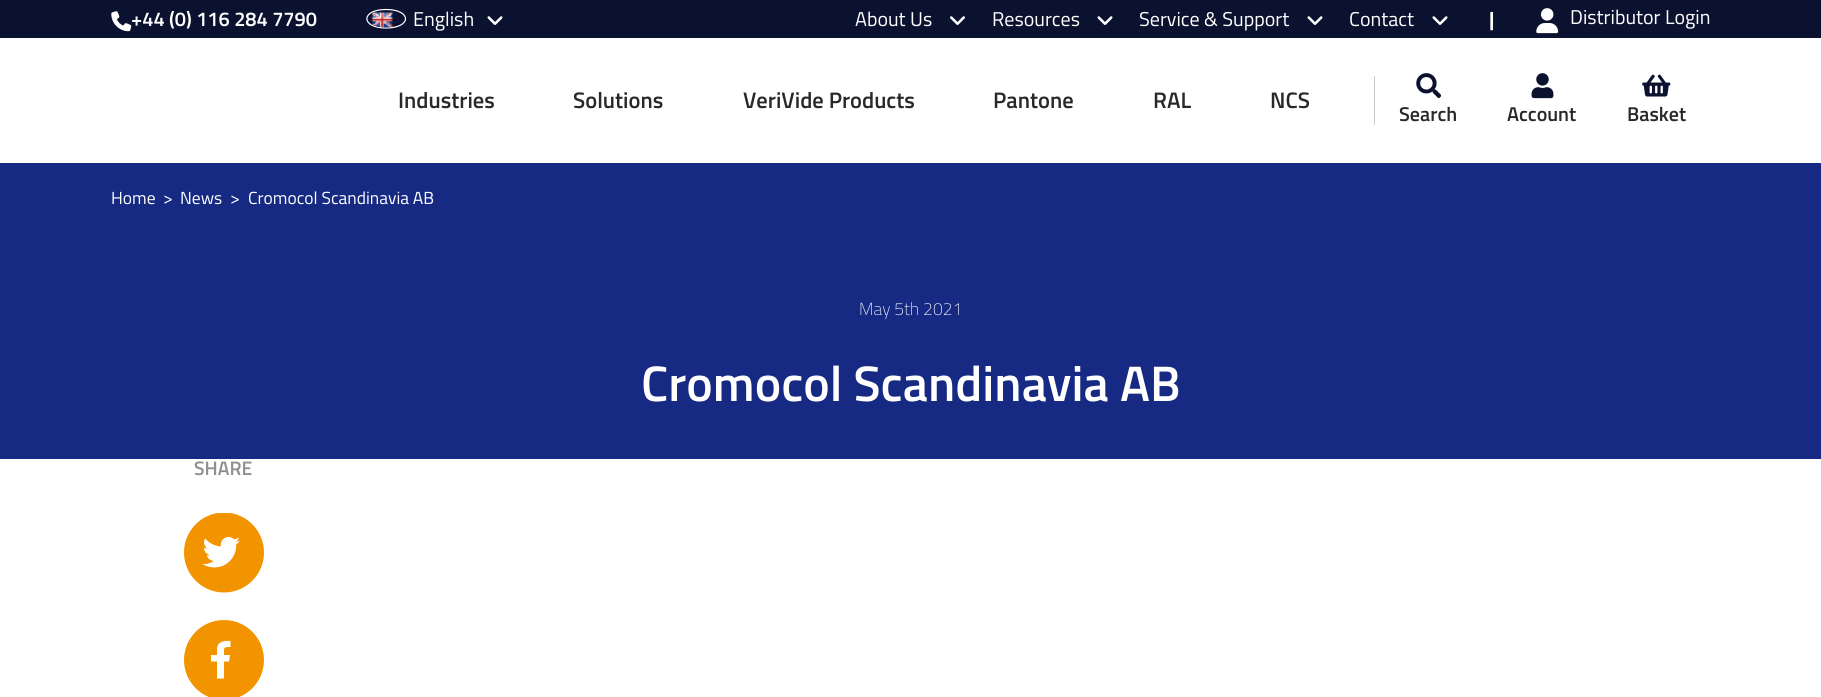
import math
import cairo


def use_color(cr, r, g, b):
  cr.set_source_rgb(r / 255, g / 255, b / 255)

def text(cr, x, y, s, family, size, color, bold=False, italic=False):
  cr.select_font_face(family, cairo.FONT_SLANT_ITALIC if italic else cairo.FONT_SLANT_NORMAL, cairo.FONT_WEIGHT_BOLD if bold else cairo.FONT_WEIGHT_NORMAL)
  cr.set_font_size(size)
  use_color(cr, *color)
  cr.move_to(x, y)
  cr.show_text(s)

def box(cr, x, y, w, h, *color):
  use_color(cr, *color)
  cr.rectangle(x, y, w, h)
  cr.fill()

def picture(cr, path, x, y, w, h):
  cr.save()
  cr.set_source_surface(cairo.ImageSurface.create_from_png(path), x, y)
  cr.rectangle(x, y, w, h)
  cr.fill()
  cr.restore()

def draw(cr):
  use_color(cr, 255, 255, 255)
  cr.paint()
  box(cr, 0, 0, 1821, 38, 11, 18, 47)
  cr.new_path()
  cr.move_to(386, 9.5)
  cr.curve_to(412, 9.5, 412, 28, 386, 28)
  cr.curve_to(360.5, 28, 360.5, 9.5, 386, 9.5)
  cr.close_path()
  use_color(cr, 255, 255, 255)
  cr.set_line_width(1.2)
  cr.stroke()
  picture(cr, "img_02.png", 371, 12, 22, 16)
  picture(cr, "img_03.png", 487, 16, 16, 9)
  picture(cr, "img_04.png", 950, 16, 15, 9)
  picture(cr, "img_03.png", 1097, 16, 16, 9)
  picture(cr, "img_03.png", 1307, 16, 16, 9)
  picture(cr, "img_03.png", 1432, 16, 16, 9)
  picture(cr, "img_05.png", 1536, 8, 23, 26)
  box(cr, 1374, 76, 1, 49, 203, 203, 203)
  picture(cr, "img_06.png", 1416, 73, 25, 26)
  picture(cr, "img_07.png", 1531, 73, 23, 26)
  picture(cr, "img_08.png", 1642, 74, 29, 23)
  box(cr, 0, 163, 1821, 296, 22, 42, 131)
  picture(cr, "img_09.png", 184, 513, 80, 80)
  use_color(cr, 242, 148, 0)
  cr.arc(224, 660, 40, 0, 2 * math.pi)
  cr.fill()
  use_color(cr, 255, 255, 255)
  cr.new_path()
  cr.move_to(217, 678.5)
  cr.line_to(217, 661.5)
  cr.line_to(211, 661.5)
  cr.line_to(211, 655)
  cr.line_to(217, 655)
  cr.line_to(217, 648)
  cr.curve_to(218, 641, 225, 640.5, 230.5, 641)
  cr.line_to(230.5, 647)
  cr.curve_to(223, 647, 224, 647.5, 224, 655)
  cr.line_to(230, 655)
  cr.line_to(229, 661.5)
  cr.line_to(224, 661.5)
  cr.line_to(224, 678.5)
  cr.close_path()
  cr.fill()
  text(cr, 131, 26, "+44 (0) 116 284 7790", "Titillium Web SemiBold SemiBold", 20, (255, 255, 255))
  picture(cr, "img_01.png", 111, 11, 21, 21)
  text(cr, 413, 26, "English", "Titillium Web", 20, (255, 255, 255))
  text(cr, 855, 26, "About Us", "Titillium Web", 20, (255, 255, 255))
  text(cr, 992, 26, "Resources", "Titillium Web", 20, (255, 255, 255))
  text(cr, 1139, 26, "Service & Support", "Titillium Web", 20, (255, 255, 255))
  text(cr, 1349, 26, "Contact", "Titillium Web", 20, (255, 255, 255))
  text(cr, 1489, 26, "|", "Titillium Web", 20, (255, 255, 255), bold=True)
  text(cr, 1570, 24, "Distributor Login", "Titillium Web", 20, (255, 255, 255))
  text(cr, 398, 108, "Industries", "Titillium Web SemiBold SemiBold", 22.5, (41, 41, 41))
  text(cr, 573, 108, "Solutions", "Titillium Web SemiBold SemiBold", 22.5, (41, 41, 41))
  text(cr, 743, 108, "VeriVide Products", "Titillium Web SemiBold SemiBold", 22.5, (41, 41, 41))
  text(cr, 993, 108, "Pantone", "Titillium Web SemiBold SemiBold", 22.5, (41, 41, 41))
  text(cr, 1153, 108, "RAL", "Titillium Web SemiBold SemiBold", 22.5, (41, 41, 41))
  text(cr, 1270, 108, "NCS", "Titillium Web SemiBold SemiBold", 22.5, (41, 41, 41))
  text(cr, 1399, 121, "Search", "Titillium Web SemiBold SemiBold", 20, (41, 41, 41))
  text(cr, 1507, 121, "Account", "Titillium Web SemiBold SemiBold", 20, (41, 41, 41))
  text(cr, 1627, 121, "Basket", "Titillium Web SemiBold SemiBold", 20, (41, 41, 41))
  text(cr, 111, 204, "Home", "Titillium Web", 17.5, (255, 255, 255))
  text(cr, 163, 204, ">", "Titillium Web", 17.5, (255, 255, 255))
  text(cr, 180, 204, "News", "Titillium Web", 17.5, (255, 255, 255))
  text(cr, 230, 204, ">", "Titillium Web", 17.5, (255, 255, 255))
  text(cr, 248, 204, "Cromocol Scandinavia AB", "Titillium Web", 17.5, (255, 255, 255))
  text(cr, 859, 315, "May 5th 2021", "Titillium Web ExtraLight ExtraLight", 17.5, (255, 255, 255))
  text(cr, 641, 401, "Cromocol Scandinavia AB", "Titillium Web SemiBold SemiBold", 50, (255, 255, 255))
  text(cr, 194, 475, "SHARE", "Titillium Web SemiBold SemiBold", 19.5, (142, 143, 145))


surface = cairo.ImageSurface(cairo.FORMAT_RGB24, 1821, 697)
cr = cairo.Context(surface)
options = cairo.FontOptions()
options.set_hint_metrics(cairo.HINT_METRICS_OFF)
options.set_hint_style(cairo.HINT_STYLE_NONE)
cr.set_font_options(options)
cr.set_miter_limit(4)
draw(cr)
surface.write_to_png("out.png")
